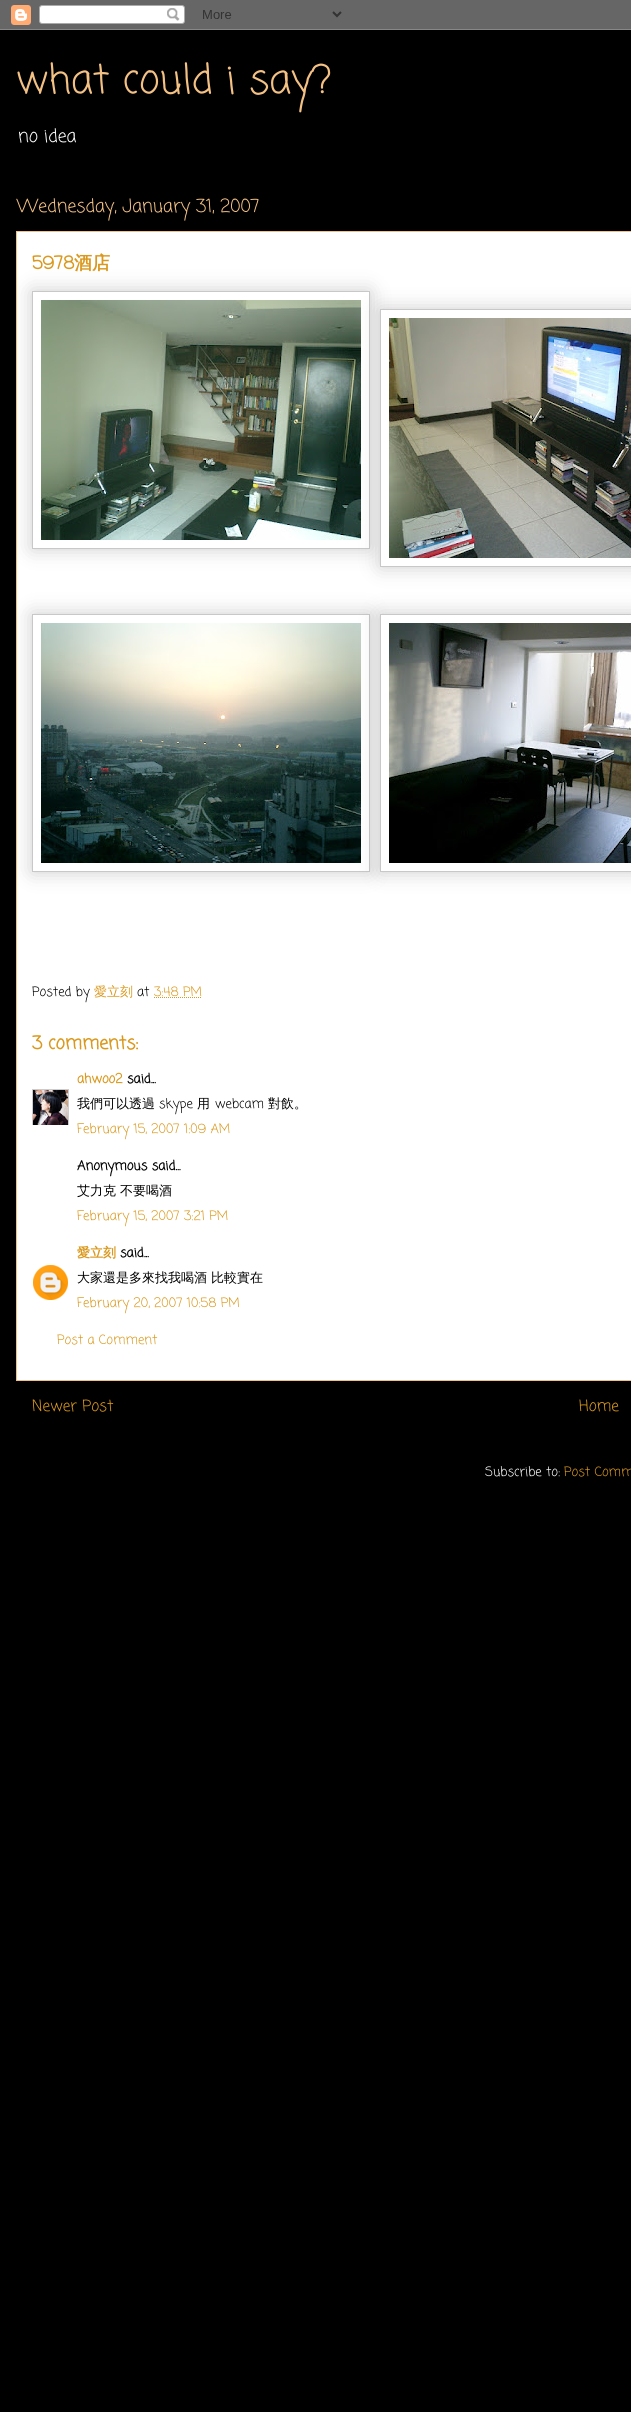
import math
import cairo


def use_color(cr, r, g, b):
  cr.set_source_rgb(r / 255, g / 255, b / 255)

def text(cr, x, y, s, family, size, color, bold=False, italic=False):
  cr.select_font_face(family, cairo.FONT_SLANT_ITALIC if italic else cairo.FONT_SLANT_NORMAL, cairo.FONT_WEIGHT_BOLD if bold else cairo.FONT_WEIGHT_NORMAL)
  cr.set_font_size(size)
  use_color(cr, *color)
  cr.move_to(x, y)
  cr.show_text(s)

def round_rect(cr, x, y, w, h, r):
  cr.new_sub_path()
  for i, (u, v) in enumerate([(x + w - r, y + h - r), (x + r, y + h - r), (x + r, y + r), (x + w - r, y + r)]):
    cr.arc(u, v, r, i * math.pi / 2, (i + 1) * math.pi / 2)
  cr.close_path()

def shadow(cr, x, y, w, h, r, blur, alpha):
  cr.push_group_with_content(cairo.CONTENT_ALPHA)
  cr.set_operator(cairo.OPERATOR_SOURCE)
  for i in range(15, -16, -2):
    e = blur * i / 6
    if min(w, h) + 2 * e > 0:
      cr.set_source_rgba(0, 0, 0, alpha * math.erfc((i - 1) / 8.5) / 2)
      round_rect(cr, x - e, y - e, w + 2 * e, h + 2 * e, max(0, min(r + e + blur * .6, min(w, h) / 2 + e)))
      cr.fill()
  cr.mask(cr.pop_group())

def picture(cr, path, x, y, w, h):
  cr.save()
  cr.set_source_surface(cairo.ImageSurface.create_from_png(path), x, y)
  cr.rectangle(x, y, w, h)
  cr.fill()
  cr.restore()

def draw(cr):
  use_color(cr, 0, 0, 0)
  cr.paint()
  picture(cr, "img_01.png", 0, 0, 631, 30)
  use_color(cr, 255, 255, 255)
  cr.rectangle(16.5, 231.5, 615, 1149)
  cr.fill_preserve()
  use_color(cr, 244, 193, 132)
  cr.set_line_width(1)
  cr.stroke()
  cr.save()
  cr.set_fill_rule(cairo.FILL_RULE_EVEN_ODD)
  cr.new_path()
  cr.move_to(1, 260)
  cr.line_to(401, 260)
  cr.line_to(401, 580)
  cr.line_to(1, 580)
  cr.close_path()
  cr.move_to(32, 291)
  cr.line_to(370, 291)
  cr.line_to(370, 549)
  cr.line_to(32, 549)
  cr.close_path()
  cr.clip()
  use_color(cr, 0, 0, 0)
  shadow(cr, 32, 291, 338, 258, 0, 10, 0.2)
  cr.restore()
  cr.rectangle(32.5, 291.5, 337, 257)
  use_color(cr, 200, 200, 200)
  cr.stroke()
  picture(cr, "img_02.png", 41, 300, 320, 240)
  use_color(cr, 0, 0, 0)
  shadow(cr, 380, 309, 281, 258, 0, 10, 0.2)
  use_color(cr, 255, 255, 255)
  cr.rectangle(380.5, 309.5, 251, 257)
  cr.fill_preserve()
  use_color(cr, 200, 200, 200)
  cr.stroke()
  picture(cr, "img_03.png", 389, 318, 242, 240)
  cr.save()
  cr.set_fill_rule(cairo.FILL_RULE_EVEN_ODD)
  cr.new_path()
  cr.move_to(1, 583)
  cr.line_to(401, 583)
  cr.line_to(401, 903)
  cr.line_to(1, 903)
  cr.close_path()
  cr.move_to(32, 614)
  cr.line_to(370, 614)
  cr.line_to(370, 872)
  cr.line_to(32, 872)
  cr.close_path()
  cr.clip()
  use_color(cr, 0, 0, 0)
  shadow(cr, 32, 614, 338, 258, 0, 10, 0.2)
  cr.restore()
  cr.rectangle(32.5, 614.5, 337, 257)
  cr.stroke()
  picture(cr, "img_04.png", 41, 623, 320, 240)
  use_color(cr, 0, 0, 0)
  shadow(cr, 380, 614, 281, 258, 0, 10, 0.2)
  use_color(cr, 255, 255, 255)
  cr.rectangle(380.5, 614.5, 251, 257)
  cr.fill_preserve()
  use_color(cr, 200, 200, 200)
  cr.stroke()
  picture(cr, "img_05.png", 389, 623, 242, 240)
  cr.new_path()
  cr.move_to(154, 997.5)
  cr.line_to(202, 997.5)
  use_color(cr, 218, 153, 30)
  cr.set_dash([1, 1])
  cr.stroke()
  cr.save()
  cr.rectangle(32, 1089, 37, 36)
  cr.clip()
  cr.rectangle(32.5, 1089.5, 36, 36)
  use_color(cr, 204, 204, 204)
  cr.set_dash([])
  cr.stroke()
  cr.restore()
  picture(cr, "img_06.png", 33, 1090, 35, 35)
  picture(cr, "img_07.png", 33, 1265, 35, 35)
  text(cr, 16, 93, "what could i say?", "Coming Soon", 40, (244, 193, 132))
  text(cr, 18, 142, "no idea", "Coming Soon", 18, (255, 255, 255))
  text(cr, 17, 212, "Wednesday, January 31, 2007", "Coming Soon", 18, (244, 193, 132))
  text(cr, 32, 269, "5978", "Coming Soon", 18, (218, 153, 30), bold=True)
  text(cr, 74, 269, "酒店", "WenQuanYi Zen Hei", 18, (218, 153, 30), bold=True)
  text(cr, 32, 996, "Posted by", "Coming Soon", 13, (0, 0, 0))
  text(cr, 94, 996, "愛立刻", "WenQuanYi Zen Hei Medium", 13, (218, 153, 30))
  text(cr, 137, 996, "at", "Coming Soon", 13, (0, 0, 0))
  text(cr, 154, 996, "3:48 PM", "Coming Soon", 13, (218, 153, 30))
  text(cr, 32, 1049, "3 comments:", "Coming Soon", 18, (218, 153, 30), bold=True)
  text(cr, 77, 1083, "ahwoo2", "Coming Soon", 13, (218, 153, 30), bold=True)
  text(cr, 127, 1083, "said...", "Coming Soon", 13, (0, 0, 0), bold=True)
  text(cr, 77, 1108, "我們可以透過", "WenQuanYi Zen Hei Medium", 13, (0, 0, 0))
  text(cr, 159, 1108, "skype", "Coming Soon", 13, (0, 0, 0))
  text(cr, 197, 1108, "用", "WenQuanYi Zen Hei Medium", 13, (0, 0, 0))
  text(cr, 215, 1108, "webcam", "Coming Soon", 13, (0, 0, 0))
  text(cr, 268, 1108, "對飲。", "WenQuanYi Zen Hei Medium", 13, (0, 0, 0))
  text(cr, 77, 1133, "February 15, 2007 1:09 AM", "Coming Soon", 13, (218, 153, 30))
  text(cr, 77, 1170, "Anonymous said...", "Coming Soon", 13, (0, 0, 0), bold=True)
  text(cr, 77, 1195, "艾力克 不要喝酒", "WenQuanYi Zen Hei Medium", 13, (0, 0, 0))
  text(cr, 77, 1220, "February 15, 2007 3:21 PM", "Coming Soon", 13, (218, 153, 30))
  text(cr, 77, 1257, "愛立刻", "WenQuanYi Zen Hei", 13, (218, 153, 30), bold=True)
  text(cr, 120, 1257, "said...", "Coming Soon", 13, (0, 0, 0), bold=True)
  text(cr, 77, 1282, "大家還是多來找我喝酒 比較實在", "WenQuanYi Zen Hei Medium", 13, (0, 0, 0))
  text(cr, 77, 1307, "February 20, 2007 10:58 PM", "Coming Soon", 13, (218, 153, 30))
  text(cr, 57, 1344, "Post a Comment", "Coming Soon", 13, (218, 153, 30))
  text(cr, 32, 1411, "Newer Post", "Coming Soon", 15.5, (218, 153, 30))
  text(cr, 579, 1411, "Home", "Coming Soon", 15.5, (218, 153, 30))
  text(cr, 485, 1476, "Subscribe to:", "Coming Soon", 13, (255, 255, 255))
  text(cr, 564, 1476, "Post Comm", "Coming Soon", 13, (218, 153, 30))


surface = cairo.ImageSurface(cairo.FORMAT_RGB24, 631, 2412)
cr = cairo.Context(surface)
options = cairo.FontOptions()
options.set_hint_metrics(cairo.HINT_METRICS_OFF)
options.set_hint_style(cairo.HINT_STYLE_NONE)
cr.set_font_options(options)
cr.set_miter_limit(4)
draw(cr)
surface.write_to_png("out.png")
